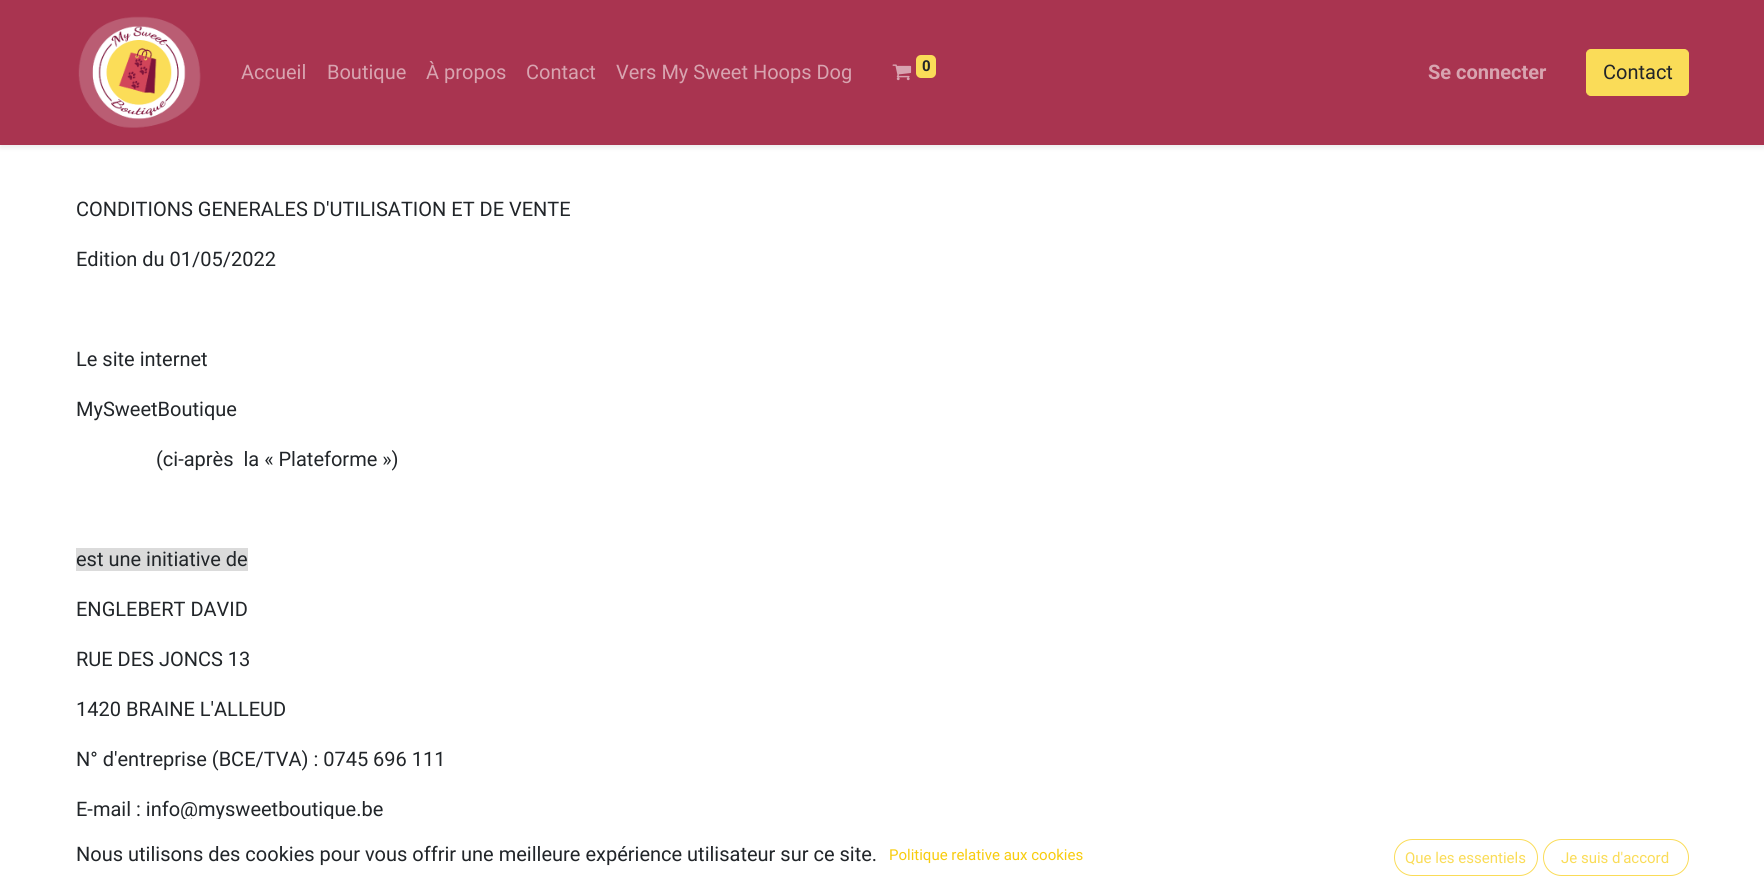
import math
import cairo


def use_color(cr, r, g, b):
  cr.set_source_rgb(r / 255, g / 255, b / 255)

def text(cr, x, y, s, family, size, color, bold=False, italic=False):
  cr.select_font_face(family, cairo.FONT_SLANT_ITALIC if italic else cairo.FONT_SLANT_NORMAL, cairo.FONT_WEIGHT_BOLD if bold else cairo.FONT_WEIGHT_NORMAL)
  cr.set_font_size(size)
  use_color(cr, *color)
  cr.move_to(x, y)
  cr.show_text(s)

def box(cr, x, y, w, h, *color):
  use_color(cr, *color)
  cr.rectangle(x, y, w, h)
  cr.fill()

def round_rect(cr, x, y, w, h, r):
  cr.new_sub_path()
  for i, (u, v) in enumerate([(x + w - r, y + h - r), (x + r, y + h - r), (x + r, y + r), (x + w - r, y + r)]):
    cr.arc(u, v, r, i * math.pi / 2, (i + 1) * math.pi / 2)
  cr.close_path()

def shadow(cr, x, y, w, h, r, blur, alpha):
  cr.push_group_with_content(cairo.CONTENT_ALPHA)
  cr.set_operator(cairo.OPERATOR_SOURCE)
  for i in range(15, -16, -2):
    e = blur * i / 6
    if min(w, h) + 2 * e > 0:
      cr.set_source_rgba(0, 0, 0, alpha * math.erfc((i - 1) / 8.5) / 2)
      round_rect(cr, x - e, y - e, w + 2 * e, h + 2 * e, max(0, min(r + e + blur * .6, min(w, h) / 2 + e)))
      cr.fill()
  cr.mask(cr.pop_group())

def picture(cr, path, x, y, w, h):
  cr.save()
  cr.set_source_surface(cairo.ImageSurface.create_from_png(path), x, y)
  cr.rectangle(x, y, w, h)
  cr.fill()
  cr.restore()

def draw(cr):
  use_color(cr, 255, 255, 255)
  cr.paint()
  use_color(cr, 0, 0, 0)
  shadow(cr, 0, 3, 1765, 145, 0, 2.5, 0.07)
  box(cr, 0, 0, 1764, 145, 169, 52, 80)
  picture(cr, "img_01.png", 78, 16, 123, 112)
  picture(cr, "img_02.png", 892, 64, 20, 17)
  use_color(cr, 250, 220, 88)
  round_rect(cr, 916, 55, 20, 23, 5)
  cr.fill()
  round_rect(cr, 1586.5, 49.5, 102, 46, 4.5)
  cr.fill_preserve()
  cr.set_line_width(1)
  cr.stroke()
  box(cr, 76, 548, 172, 23, 219, 219, 219)
  round_rect(cr, 1394.5, 839.5, 143, 36, 18)
  use_color(cr, 250, 220, 88)
  cr.stroke()
  round_rect(cr, 1543.5, 839.5, 145, 36, 18)
  cr.stroke()
  text(cr, 241, 79, "Accueil", "Roboto", 20, (216, 164, 176))
  text(cr, 327, 79, "Boutique", "Roboto", 20, (216, 164, 176))
  text(cr, 426, 79, "À propos", "Roboto", 20, (216, 164, 176))
  text(cr, 526, 79, "Contact", "Roboto", 20, (216, 164, 176))
  text(cr, 616, 79, "Vers My Sweet Hoops Dog", "Roboto", 20, (216, 164, 176))
  text(cr, 922, 71, "0", "Roboto", 15, (33, 37, 41), bold=True)
  text(cr, 1428, 79, "Se connecter", "Roboto", 20, (216, 164, 176), bold=True)
  text(cr, 1603, 79, "Contact", "Roboto", 20, (33, 37, 41))
  text(cr, 76, 216, "CONDITIONS GENERALES D'UTILISATION ET DE VENTE", "Roboto", 20, (33, 37, 41))
  text(cr, 76, 266, "Edition du 01/05/2022", "Roboto", 20, (33, 37, 41))
  text(cr, 76, 366, "Le site internet", "Roboto", 20, (33, 37, 41))
  text(cr, 76, 416, "MySweetBoutique", "Roboto", 20, (33, 37, 41))
  text(cr, 156, 466, "(ci-après  la « Plateforme »)", "Roboto", 20, (33, 37, 41))
  text(cr, 76, 566, "est une initiative de", "Roboto", 20, (33, 37, 41))
  text(cr, 76, 616, "ENGLEBERT DAVID", "Roboto", 20, (33, 37, 41))
  text(cr, 76, 666, "RUE DES JONCS 13", "Roboto", 20, (33, 37, 41))
  text(cr, 76, 716, "1420 BRAINE L'ALLEUD", "Roboto", 20, (33, 37, 41))
  text(cr, 76, 766, "N° d'entreprise (BCE/TVA) : 0745 696 111", "Roboto", 20, (33, 37, 41))
  text(cr, 76, 816, "E-mail : info@mysweetboutique.be", "Roboto", 20, (33, 37, 41))
  box(cr, 184, 819, 150, 2, 255, 255, 255)
  text(cr, 76, 861, "Nous utilisons des cookies pour vous offrir une meilleure expérience utilisateur sur ce site.", "Roboto", 20, (33, 37, 41))
  text(cr, 889, 860, "Politique relative aux cookies", "Roboto", 15, (248, 204, 14))
  text(cr, 1405, 863, "Que les essentiels", "Roboto", 15, (250, 220, 88))
  text(cr, 1561, 863, "Je suis d'accord", "Roboto", 15, (250, 220, 88))


surface = cairo.ImageSurface(cairo.FORMAT_RGB24, 1764, 896)
cr = cairo.Context(surface)
options = cairo.FontOptions()
options.set_hint_metrics(cairo.HINT_METRICS_OFF)
options.set_hint_style(cairo.HINT_STYLE_NONE)
cr.set_font_options(options)
cr.set_miter_limit(4)
draw(cr)
surface.write_to_png("out.png")
